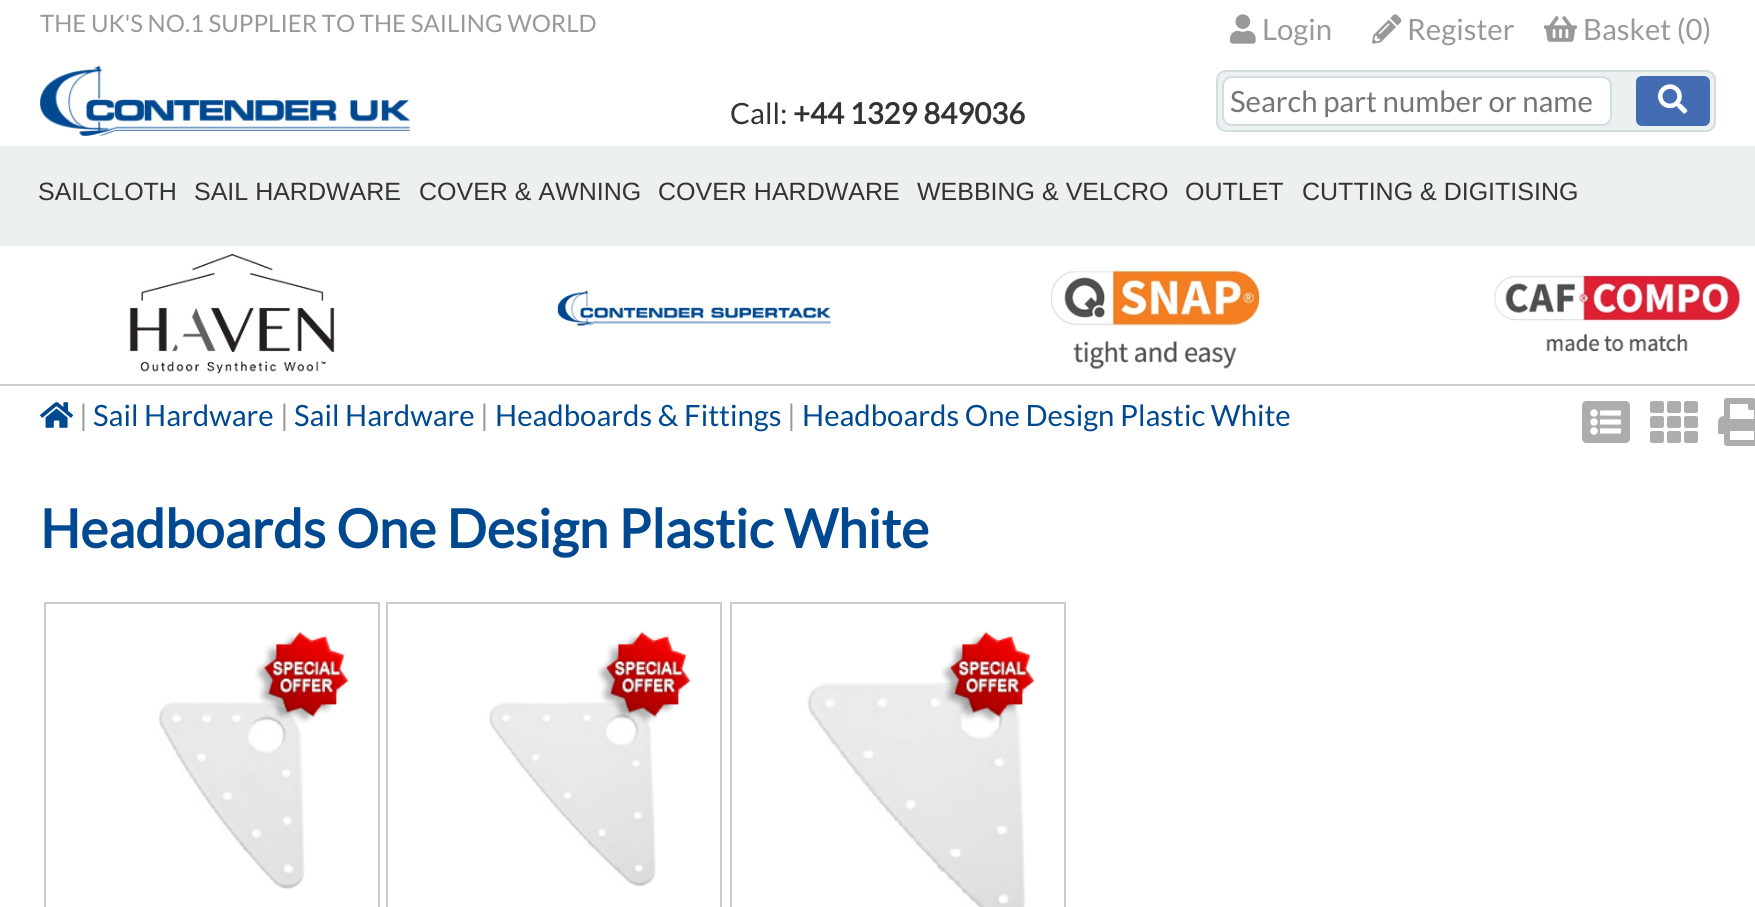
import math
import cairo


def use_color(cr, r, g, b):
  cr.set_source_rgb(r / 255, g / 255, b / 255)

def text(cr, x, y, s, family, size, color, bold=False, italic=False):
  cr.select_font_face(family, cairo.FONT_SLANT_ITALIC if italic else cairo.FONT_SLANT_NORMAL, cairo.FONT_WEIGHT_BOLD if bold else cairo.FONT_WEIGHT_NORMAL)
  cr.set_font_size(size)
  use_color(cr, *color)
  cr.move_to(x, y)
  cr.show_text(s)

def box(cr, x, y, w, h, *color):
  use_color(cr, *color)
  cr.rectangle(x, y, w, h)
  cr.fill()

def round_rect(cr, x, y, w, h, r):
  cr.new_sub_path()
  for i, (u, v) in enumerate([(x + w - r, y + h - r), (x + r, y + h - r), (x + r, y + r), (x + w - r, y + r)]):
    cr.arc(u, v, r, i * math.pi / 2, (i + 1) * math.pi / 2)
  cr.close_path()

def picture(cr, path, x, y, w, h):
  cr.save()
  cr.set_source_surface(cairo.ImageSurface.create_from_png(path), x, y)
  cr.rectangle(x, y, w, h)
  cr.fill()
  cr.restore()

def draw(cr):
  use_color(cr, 255, 255, 255)
  cr.paint()
  picture(cr, "img_01.png", 1230, 14, 26, 30)
  picture(cr, "img_02.png", 1372, 14, 30, 30)
  picture(cr, "img_03.png", 1544, 16, 33, 26)
  picture(cr, "img_04.png", 40, 66, 370, 70)
  use_color(cr, 236, 240, 241)
  round_rect(cr, 1217, 71, 498, 60, 9)
  cr.fill_preserve()
  use_color(cr, 211, 220, 222)
  cr.stroke()
  use_color(cr, 255, 255, 255)
  round_rect(cr, 1223, 77, 388, 48, 9)
  cr.fill_preserve()
  use_color(cr, 211, 220, 222)
  cr.stroke()
  use_color(cr, 68, 108, 179)
  round_rect(cr, 1636, 76, 74, 50, 6)
  cr.fill()
  picture(cr, "img_05.png", 1658, 84, 30, 30)
  box(cr, 0, 146, 1755, 100, 236, 240, 241)
  box(cr, 0, 384, 1755, 2, 204, 204, 204)
  picture(cr, "img_06.png", 129, 254, 206, 120)
  picture(cr, "img_07.png", 557, 290, 274, 36)
  picture(cr, "img_08.png", 1051, 269, 209, 100)
  picture(cr, "img_09.png", 1494, 275, 247, 77)
  picture(cr, "img_10.png", 40, 402, 33, 26)
  picture(cr, "img_11.png", 1582, 401, 48, 42)
  picture(cr, "img_12.png", 1650, 401, 48, 42)
  picture(cr, "img_13.png", 1718, 398, 37, 48)
  cr.rectangle(45, 603, 334, 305)
  cr.stroke()
  picture(cr, "img_15.png", 158, 702, 147, 187)
  picture(cr, "img_14.png", 255, 631, 95, 92)
  cr.rectangle(387, 603, 334, 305)
  cr.stroke()
  picture(cr, "img_17.png", 489, 702, 167, 185)
  picture(cr, "img_16.png", 597, 631, 95, 92)
  cr.rectangle(731, 603, 334, 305)
  cr.stroke()
  picture(cr, "img_19.png", 807, 682, 219, 225)
  picture(cr, "img_18.png", 941, 631, 95, 92)
  text(cr, 40, 32, "THE UK'S NO.1 SUPPLIER TO THE SAILING WORLD", "Lato", 24, (153, 153, 153))
  text(cr, 1262, 40, "Login", "Lato", 29.3, (153, 153, 153))
  text(cr, 1407, 40, "Register", "Lato", 29.3, (153, 153, 153))
  text(cr, 1583, 40, "Basket (0)", "Lato", 29.3, (153, 153, 153))
  text(cr, 730, 124, "Call:", "Lato", 29.3, (51, 51, 51))
  text(cr, 793, 124, "+44 1329 849036", "Lato", 29.3, (51, 51, 51), bold=True)
  text(cr, 1230, 112, "Search part number or name", "Lato", 29.3, (117, 117, 117))
  text(cr, 38, 200, "SAILCLOTH", "Liberation Sans", 25, (51, 51, 51))
  text(cr, 194, 200, "SAIL HARDWARE", "Liberation Sans", 25, (51, 51, 51))
  text(cr, 419, 200, "COVER & AWNING", "Liberation Sans", 25, (51, 51, 51))
  text(cr, 658, 200, "COVER HARDWARE", "Liberation Sans", 25, (51, 51, 51))
  text(cr, 917, 200, "WEBBING & VELCRO", "Liberation Sans", 25, (51, 51, 51))
  text(cr, 1185, 200, "OUTLET", "Liberation Sans", 25, (51, 51, 51))
  text(cr, 1302, 200, "CUTTING & DIGITISING", "Liberation Sans", 25, (51, 51, 51))
  text(cr, 79, 426, "|", "Lato", 29.3, (153, 153, 153))
  text(cr, 93, 426, "Sail Hardware", "Lato", 29.3, (0, 73, 144))
  text(cr, 280, 426, "|", "Lato", 29.3, (153, 153, 153))
  text(cr, 294, 426, "Sail Hardware", "Lato", 29.3, (0, 73, 144))
  text(cr, 480, 426, "|", "Lato", 29.3, (153, 153, 153))
  text(cr, 495, 426, "Headboards & Fittings", "Lato", 29.3, (0, 73, 144))
  text(cr, 787, 426, "|", "Lato", 29.3, (153, 153, 153))
  text(cr, 802, 426, "Headboards One Design Plastic White", "Lato", 29.3, (0, 73, 144))
  text(cr, 40, 548, "Headboards One Design Plastic White", "Lato", 53.3, (0, 73, 144), bold=True)


surface = cairo.ImageSurface(cairo.FORMAT_RGB24, 1755, 907)
cr = cairo.Context(surface)
options = cairo.FontOptions()
options.set_hint_metrics(cairo.HINT_METRICS_OFF)
options.set_hint_style(cairo.HINT_STYLE_NONE)
cr.set_font_options(options)
cr.set_miter_limit(4)
draw(cr)
surface.write_to_png("out.png")
